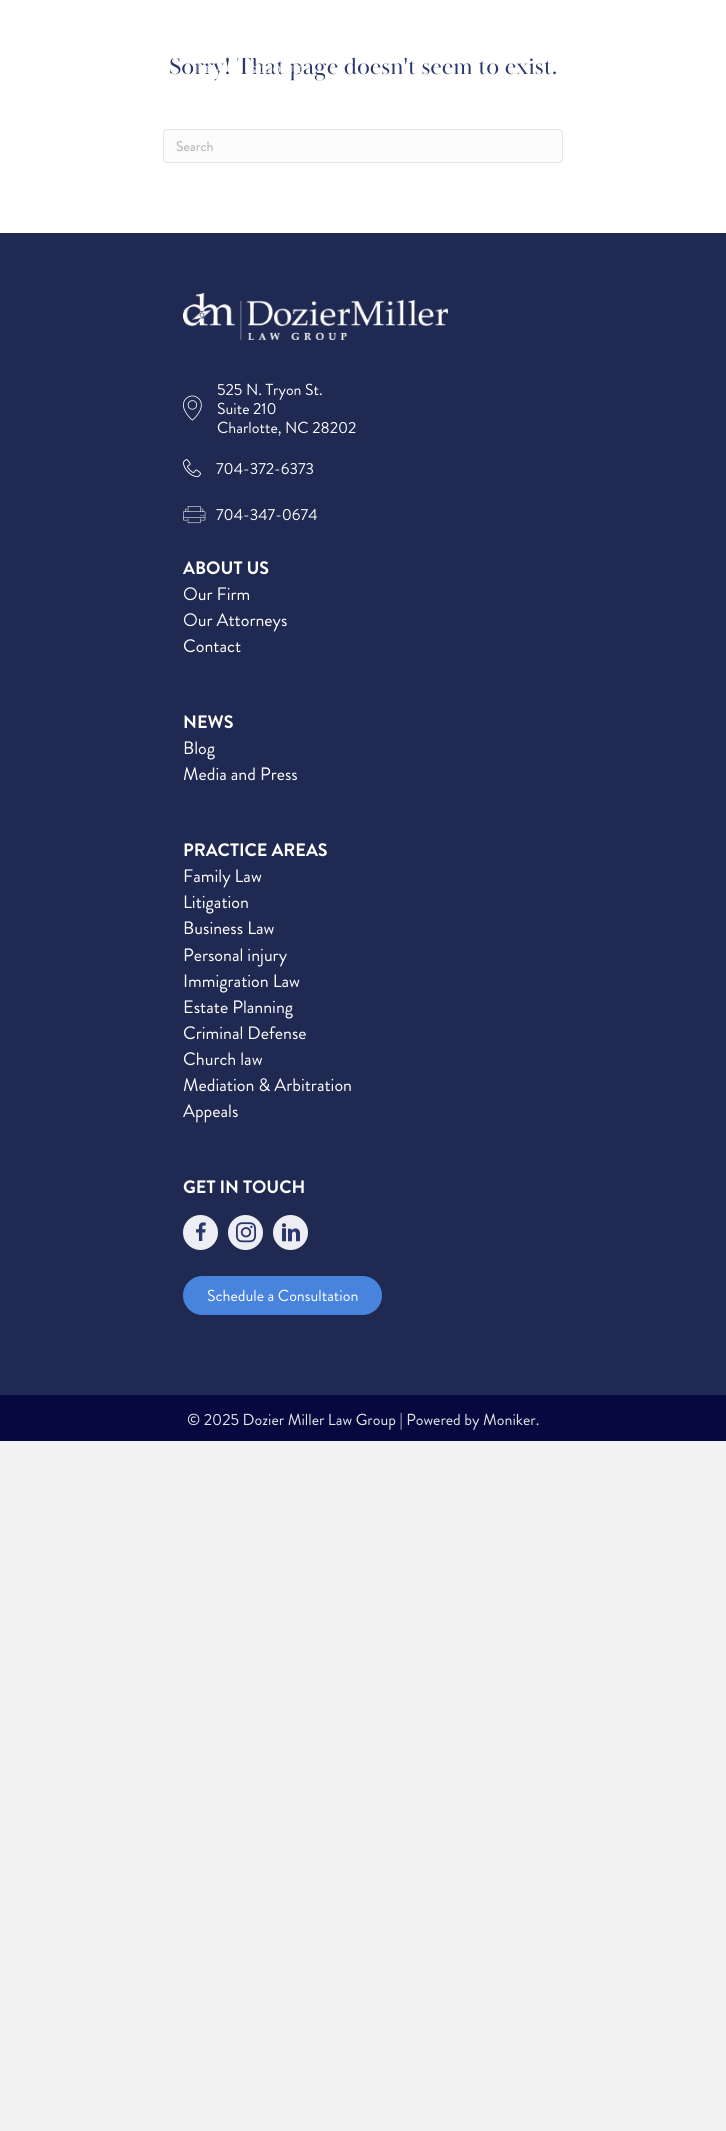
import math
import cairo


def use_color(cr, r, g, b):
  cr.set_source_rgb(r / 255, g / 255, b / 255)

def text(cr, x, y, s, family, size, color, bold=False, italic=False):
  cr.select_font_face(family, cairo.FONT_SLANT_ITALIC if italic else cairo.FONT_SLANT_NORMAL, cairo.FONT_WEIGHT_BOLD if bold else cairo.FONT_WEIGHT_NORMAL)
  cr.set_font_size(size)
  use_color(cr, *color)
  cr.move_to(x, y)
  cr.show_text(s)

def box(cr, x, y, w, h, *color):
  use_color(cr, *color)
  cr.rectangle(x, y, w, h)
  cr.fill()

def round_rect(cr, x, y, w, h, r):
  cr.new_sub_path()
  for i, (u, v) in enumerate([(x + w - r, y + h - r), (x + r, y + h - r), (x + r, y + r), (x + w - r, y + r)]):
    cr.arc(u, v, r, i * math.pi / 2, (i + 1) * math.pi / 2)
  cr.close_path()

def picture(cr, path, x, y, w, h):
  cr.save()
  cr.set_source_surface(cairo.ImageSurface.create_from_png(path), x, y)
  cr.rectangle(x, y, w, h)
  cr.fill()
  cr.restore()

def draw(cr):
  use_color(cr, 242, 242, 242)
  cr.paint()
  box(cr, 0, 0, 726, 233, 255, 255, 255)
  use_color(cr, 252, 252, 252)
  round_rect(cr, 163.5, 129.5, 399, 33, 3.5)
  cr.fill_preserve()
  use_color(cr, 230, 230, 230)
  cr.set_line_width(1)
  cr.stroke()
  box(cr, 0, 233, 726, 1162, 32, 41, 81)
  picture(cr, "img_02.png", 183, 293, 265, 47)
  picture(cr, "img_03.png", 183, 395, 19, 26)
  picture(cr, "img_04.png", 183, 459, 18, 19)
  picture(cr, "img_05.png", 183, 506, 23, 18)
  use_color(cr, 236, 238, 244)
  cr.arc(200.5, 1232.5, 17.5, 0, 2 * math.pi)
  cr.fill()
  picture(cr, "img_06.png", 196, 1222, 10, 19)
  cr.arc(245.5, 1232.5, 17.5, 0, 2 * math.pi)
  cr.fill()
  picture(cr, "img_07.png", 236, 1222, 20, 21)
  cr.arc(290.5, 1232.5, 17.5, 0, 2 * math.pi)
  cr.fill()
  picture(cr, "img_08.png", 282, 1223, 18, 19)
  use_color(cr, 72, 132, 222)
  round_rect(cr, 183, 1276, 199, 39, 19.5)
  cr.fill()
  box(cr, 0, 1395, 726, 46, 5, 9, 63)
  text(cr, 169, 74, "Sorry! That page doesn't seem to exist.", "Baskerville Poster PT", 24, (42, 54, 108))
  text(cr, 176, 151, "Search", "Brandon Grotesque", 14, (172, 172, 172))
  picture(cr, "img_01.png", 172, 57, 183, 16)
  text(cr, 217, 395, "525 N. Tryon St.", "Brandon Grotesque", 16, (255, 255, 255))
  text(cr, 217, 414, "Suite 210", "Brandon Grotesque", 16, (255, 255, 255))
  text(cr, 217, 433, "Charlotte, NC 28202", "Brandon Grotesque", 16, (255, 255, 255))
  text(cr, 216, 474, "704-372-6373", "Brandon Grotesque", 16, (255, 255, 255))
  text(cr, 216, 520, "704-347-0674", "Brandon Grotesque", 16, (255, 255, 255))
  text(cr, 183, 574, "ABOUT US", "Brandon Grotesque", 18, (255, 255, 255), bold=True)
  text(cr, 183, 600, "Our Firm", "Brandon Grotesque", 18, (255, 255, 255))
  text(cr, 183, 626, "Our Attorneys", "Brandon Grotesque", 18, (255, 255, 255))
  text(cr, 183, 652, "Contact", "Brandon Grotesque", 18, (255, 255, 255))
  text(cr, 183, 728, "NEWS", "Brandon Grotesque", 18, (255, 255, 255), bold=True)
  text(cr, 183, 754, "Blog", "Brandon Grotesque", 18, (255, 255, 255))
  text(cr, 183, 780, "Media and Press", "Brandon Grotesque", 18, (255, 255, 255))
  text(cr, 183, 856, "PRACTICE AREAS", "Brandon Grotesque", 18, (255, 255, 255), bold=True)
  text(cr, 183, 882, "Family Law", "Brandon Grotesque", 18, (255, 255, 255))
  text(cr, 183, 908, "Litigation", "Brandon Grotesque", 18, (255, 255, 255))
  text(cr, 183, 934, "Business Law", "Brandon Grotesque", 18, (255, 255, 255))
  text(cr, 183, 961, "Personal injury", "Brandon Grotesque", 18, (255, 255, 255))
  text(cr, 183, 987, "Immigration Law", "Brandon Grotesque", 18, (255, 255, 255))
  text(cr, 183, 1013, "Estate Planning", "Brandon Grotesque", 18, (255, 255, 255))
  text(cr, 183, 1039, "Criminal Defense", "Brandon Grotesque", 18, (255, 255, 255))
  text(cr, 183, 1065, "Church law", "Brandon Grotesque", 18, (255, 255, 255))
  text(cr, 183, 1091, "Mediation & Arbitration", "Brandon Grotesque", 18, (255, 255, 255))
  text(cr, 183, 1117, "Appeals", "Brandon Grotesque", 18, (255, 255, 255))
  text(cr, 183, 1193, "GET IN TOUCH", "Brandon Grotesque", 18, (255, 255, 255), bold=True)
  text(cr, 207, 1301, "Schedule a Consultation", "Brandon Grotesque", 16, (255, 255, 255))
  text(cr, 187, 1425, "© 2025 Dozier Miller Law Group | Powered by Moniker.", "Brandon Grotesque", 16, (232, 232, 232))


surface = cairo.ImageSurface(cairo.FORMAT_RGB24, 726, 2131)
cr = cairo.Context(surface)
options = cairo.FontOptions()
options.set_hint_metrics(cairo.HINT_METRICS_OFF)
options.set_hint_style(cairo.HINT_STYLE_NONE)
cr.set_font_options(options)
cr.set_miter_limit(4)
draw(cr)
surface.write_to_png("out.png")
